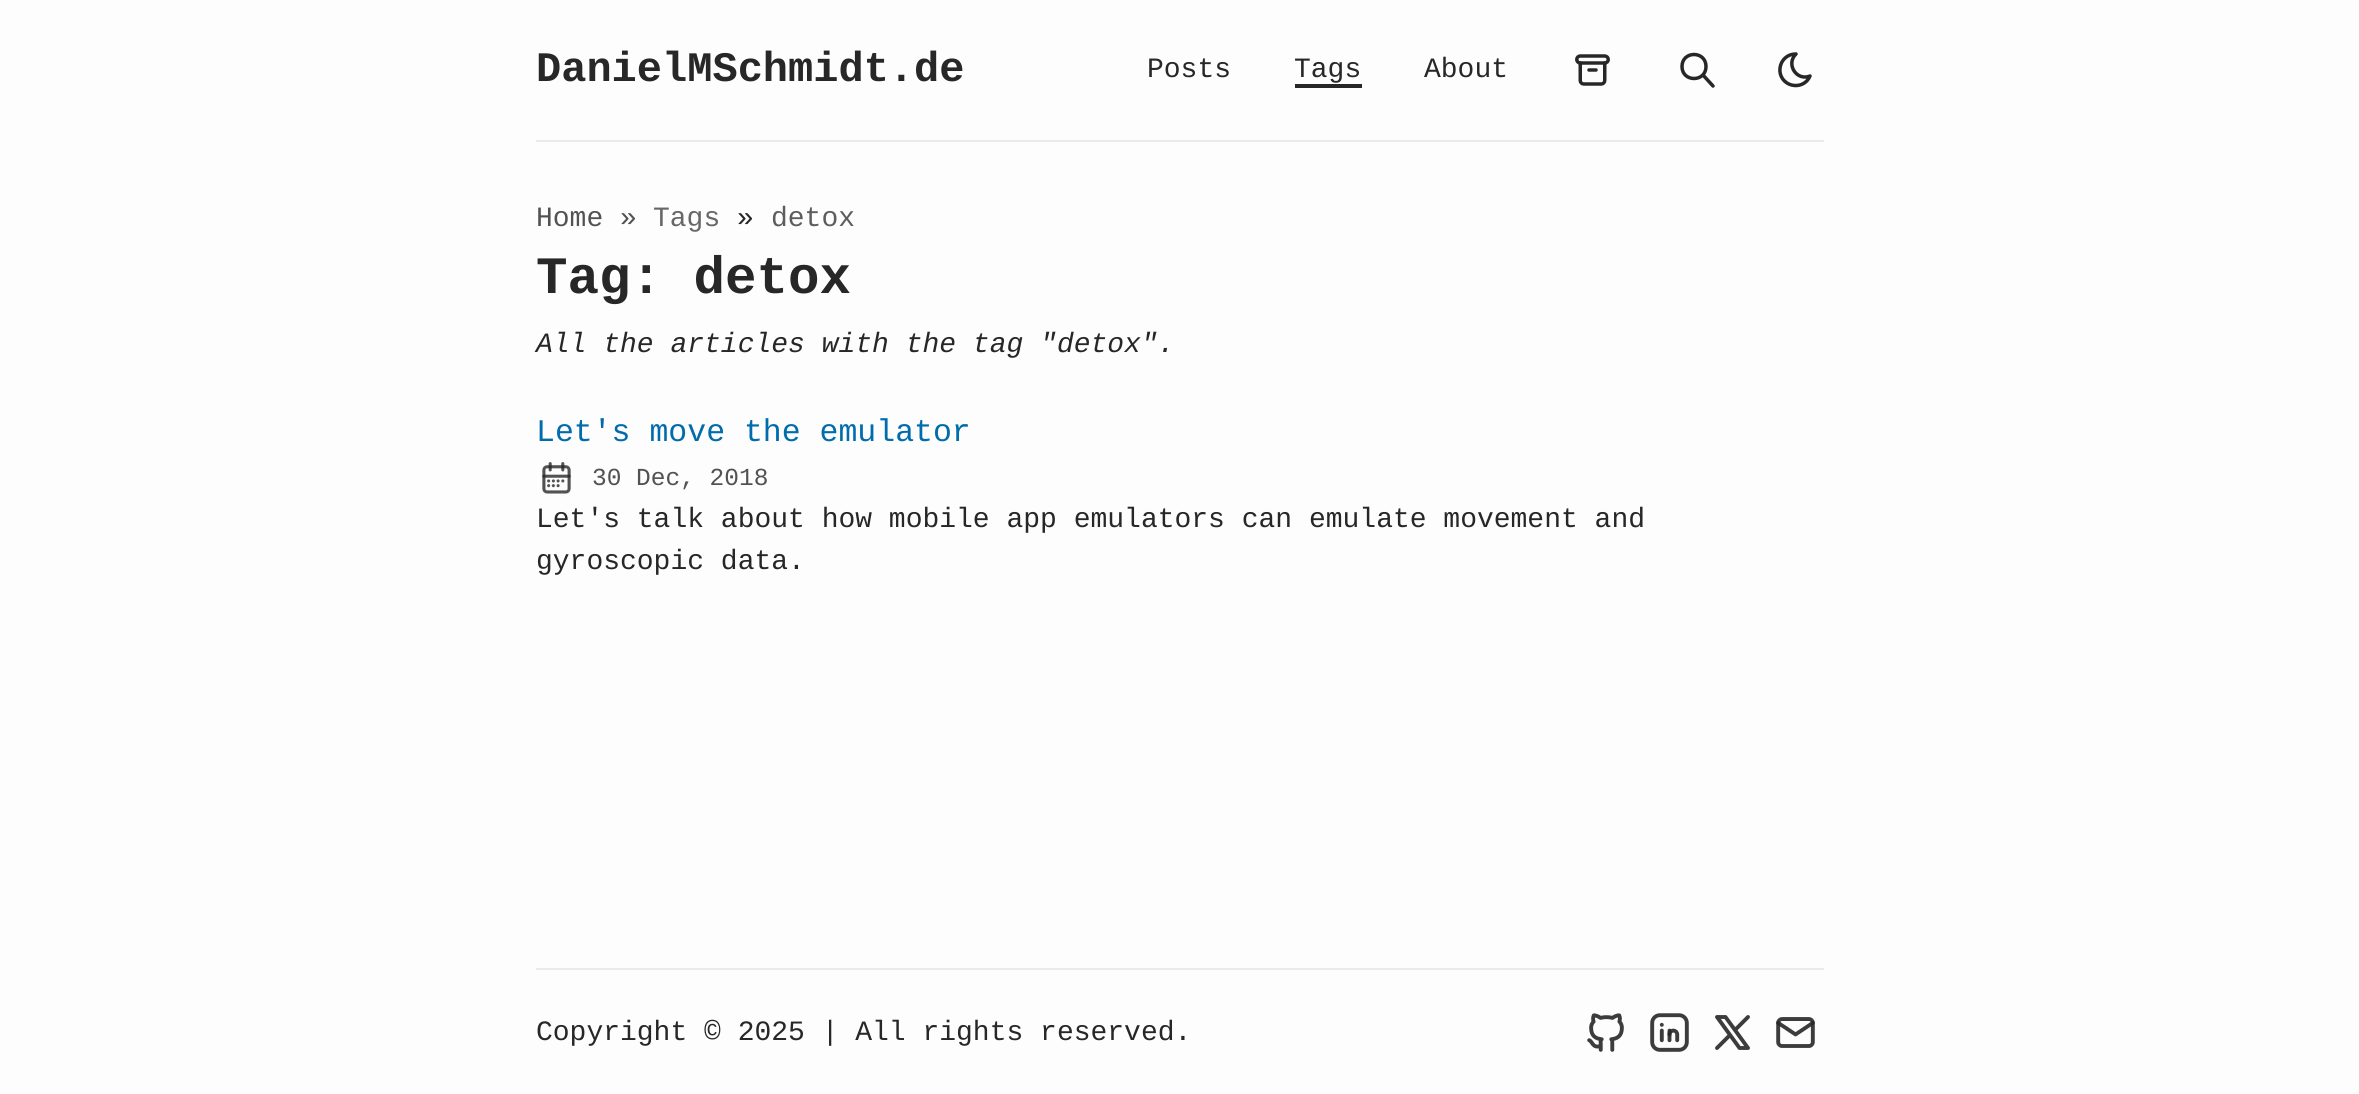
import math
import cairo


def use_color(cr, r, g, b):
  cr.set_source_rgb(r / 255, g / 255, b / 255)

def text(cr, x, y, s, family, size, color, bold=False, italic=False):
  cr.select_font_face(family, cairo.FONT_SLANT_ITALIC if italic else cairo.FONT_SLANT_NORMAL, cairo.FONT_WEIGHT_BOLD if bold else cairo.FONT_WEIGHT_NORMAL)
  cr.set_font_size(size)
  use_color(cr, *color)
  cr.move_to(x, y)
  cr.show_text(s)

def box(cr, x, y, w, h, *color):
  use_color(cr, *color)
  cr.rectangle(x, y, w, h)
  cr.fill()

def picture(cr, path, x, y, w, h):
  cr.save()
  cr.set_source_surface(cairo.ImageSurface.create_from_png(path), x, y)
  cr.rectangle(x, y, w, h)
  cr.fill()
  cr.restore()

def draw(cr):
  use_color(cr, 253, 253, 253)
  cr.paint()
  box(cr, 1295, 84, 67, 4, 40, 39, 40)
  picture(cr, "img_01.png", 1575, 54, 35, 32)
  cr.new_path()
  cr.move_to(1682, 66.5)
  cr.curve_to(1682, 82.5, 1706, 82.5, 1706, 66.5)
  cr.curve_to(1706, 50.5, 1682, 50.5, 1682, 66.5)
  cr.move_to(1713, 86)
  cr.line_to(1703, 75)
  cr.set_line_width(3.5)
  cr.set_line_cap(cairo.LINE_CAP_ROUND)
  cr.set_line_join(cairo.LINE_JOIN_ROUND)
  cr.stroke()
  cr.new_path()
  cr.move_to(1795.5, 54)
  cr.line_to(1796, 54)
  cr.curve_to(1785.5, 64, 1796.5, 81.5, 1810, 76)
  cr.curve_to(1807, 83.5, 1799, 87, 1791.5, 85)
  cr.curve_to(1784, 83, 1779, 76, 1780, 68)
  cr.curve_to(1781, 60, 1787.5, 54, 1795.5, 54)
  cr.close_path()
  cr.stroke()
  box(cr, 536, 140, 1288, 2, 236, 233, 233)
  picture(cr, "img_02.png", 542, 462, 29, 32)
  box(cr, 536, 968, 1288, 2, 236, 233, 233)
  picture(cr, "img_03.png", 1587, 1013, 37, 39)
  picture(cr, "img_04.png", 1650, 1013, 39, 39)
  cr.new_path()
  cr.move_to(1717, 1017)
  cr.line_to(1739.5, 1048)
  cr.line_to(1748, 1048)
  cr.line_to(1725.5, 1017)
  cr.close_path()
  cr.move_to(1717, 1048)
  cr.line_to(1730, 1035)
  cr.move_to(1735, 1030)
  cr.line_to(1748, 1017)
  use_color(cr, 61, 60, 61)
  cr.set_line_width(3.9)
  cr.stroke()
  picture(cr, "img_05.png", 1776, 1017, 39, 31)
  text(cr, 536, 81, "DanielMSchmidt.de", "Liberation Mono", 42, (40, 39, 40), bold=True)
  text(cr, 1147, 77, "Posts", "Liberation Mono", 28, (40, 39, 40))
  text(cr, 1294, 77, "Tags", "Liberation Mono", 28, (40, 39, 40))
  text(cr, 1424, 77, "About", "Liberation Mono", 28, (40, 39, 40))
  text(cr, 536, 226, "Home »", "Liberation Mono", 28, (83, 82, 83))
  text(cr, 653, 226, "Tags", "Liberation Mono", 28, (104, 103, 104))
  text(cr, 737, 226, "»", "Liberation Mono", 28, (40, 39, 40))
  text(cr, 771, 226, "detox", "Liberation Mono", 28, (93, 93, 93))
  text(cr, 536, 293, "Tag: detox", "Liberation Mono", 52.5, (40, 39, 40), bold=True)
  text(cr, 536, 352, "All the articles with the tag \"detox\".", "Liberation Mono", 28, (40, 39, 40), italic=True)
  text(cr, 536, 441, "Let's move the emulator", "Liberation Mono", 31.5, (0, 108, 172))
  text(cr, 592, 485, "30 Dec, 2018", "Liberation Mono", 24.5, (83, 82, 83))
  text(cr, 536, 527, "Let's talk about how mobile app emulators can emulate movement and", "Liberation Mono", 28, (40, 39, 40))
  text(cr, 536, 569, "gyroscopic data.", "Liberation Mono", 28, (40, 39, 40))
  text(cr, 536, 1040, "Copyright © 2025 | All rights reserved.", "Liberation Mono", 28, (40, 39, 40))


surface = cairo.ImageSurface(cairo.FORMAT_RGB24, 2359, 1094)
cr = cairo.Context(surface)
options = cairo.FontOptions()
options.set_hint_metrics(cairo.HINT_METRICS_OFF)
options.set_hint_style(cairo.HINT_STYLE_NONE)
cr.set_font_options(options)
cr.set_miter_limit(4)
draw(cr)
surface.write_to_png("out.png")
